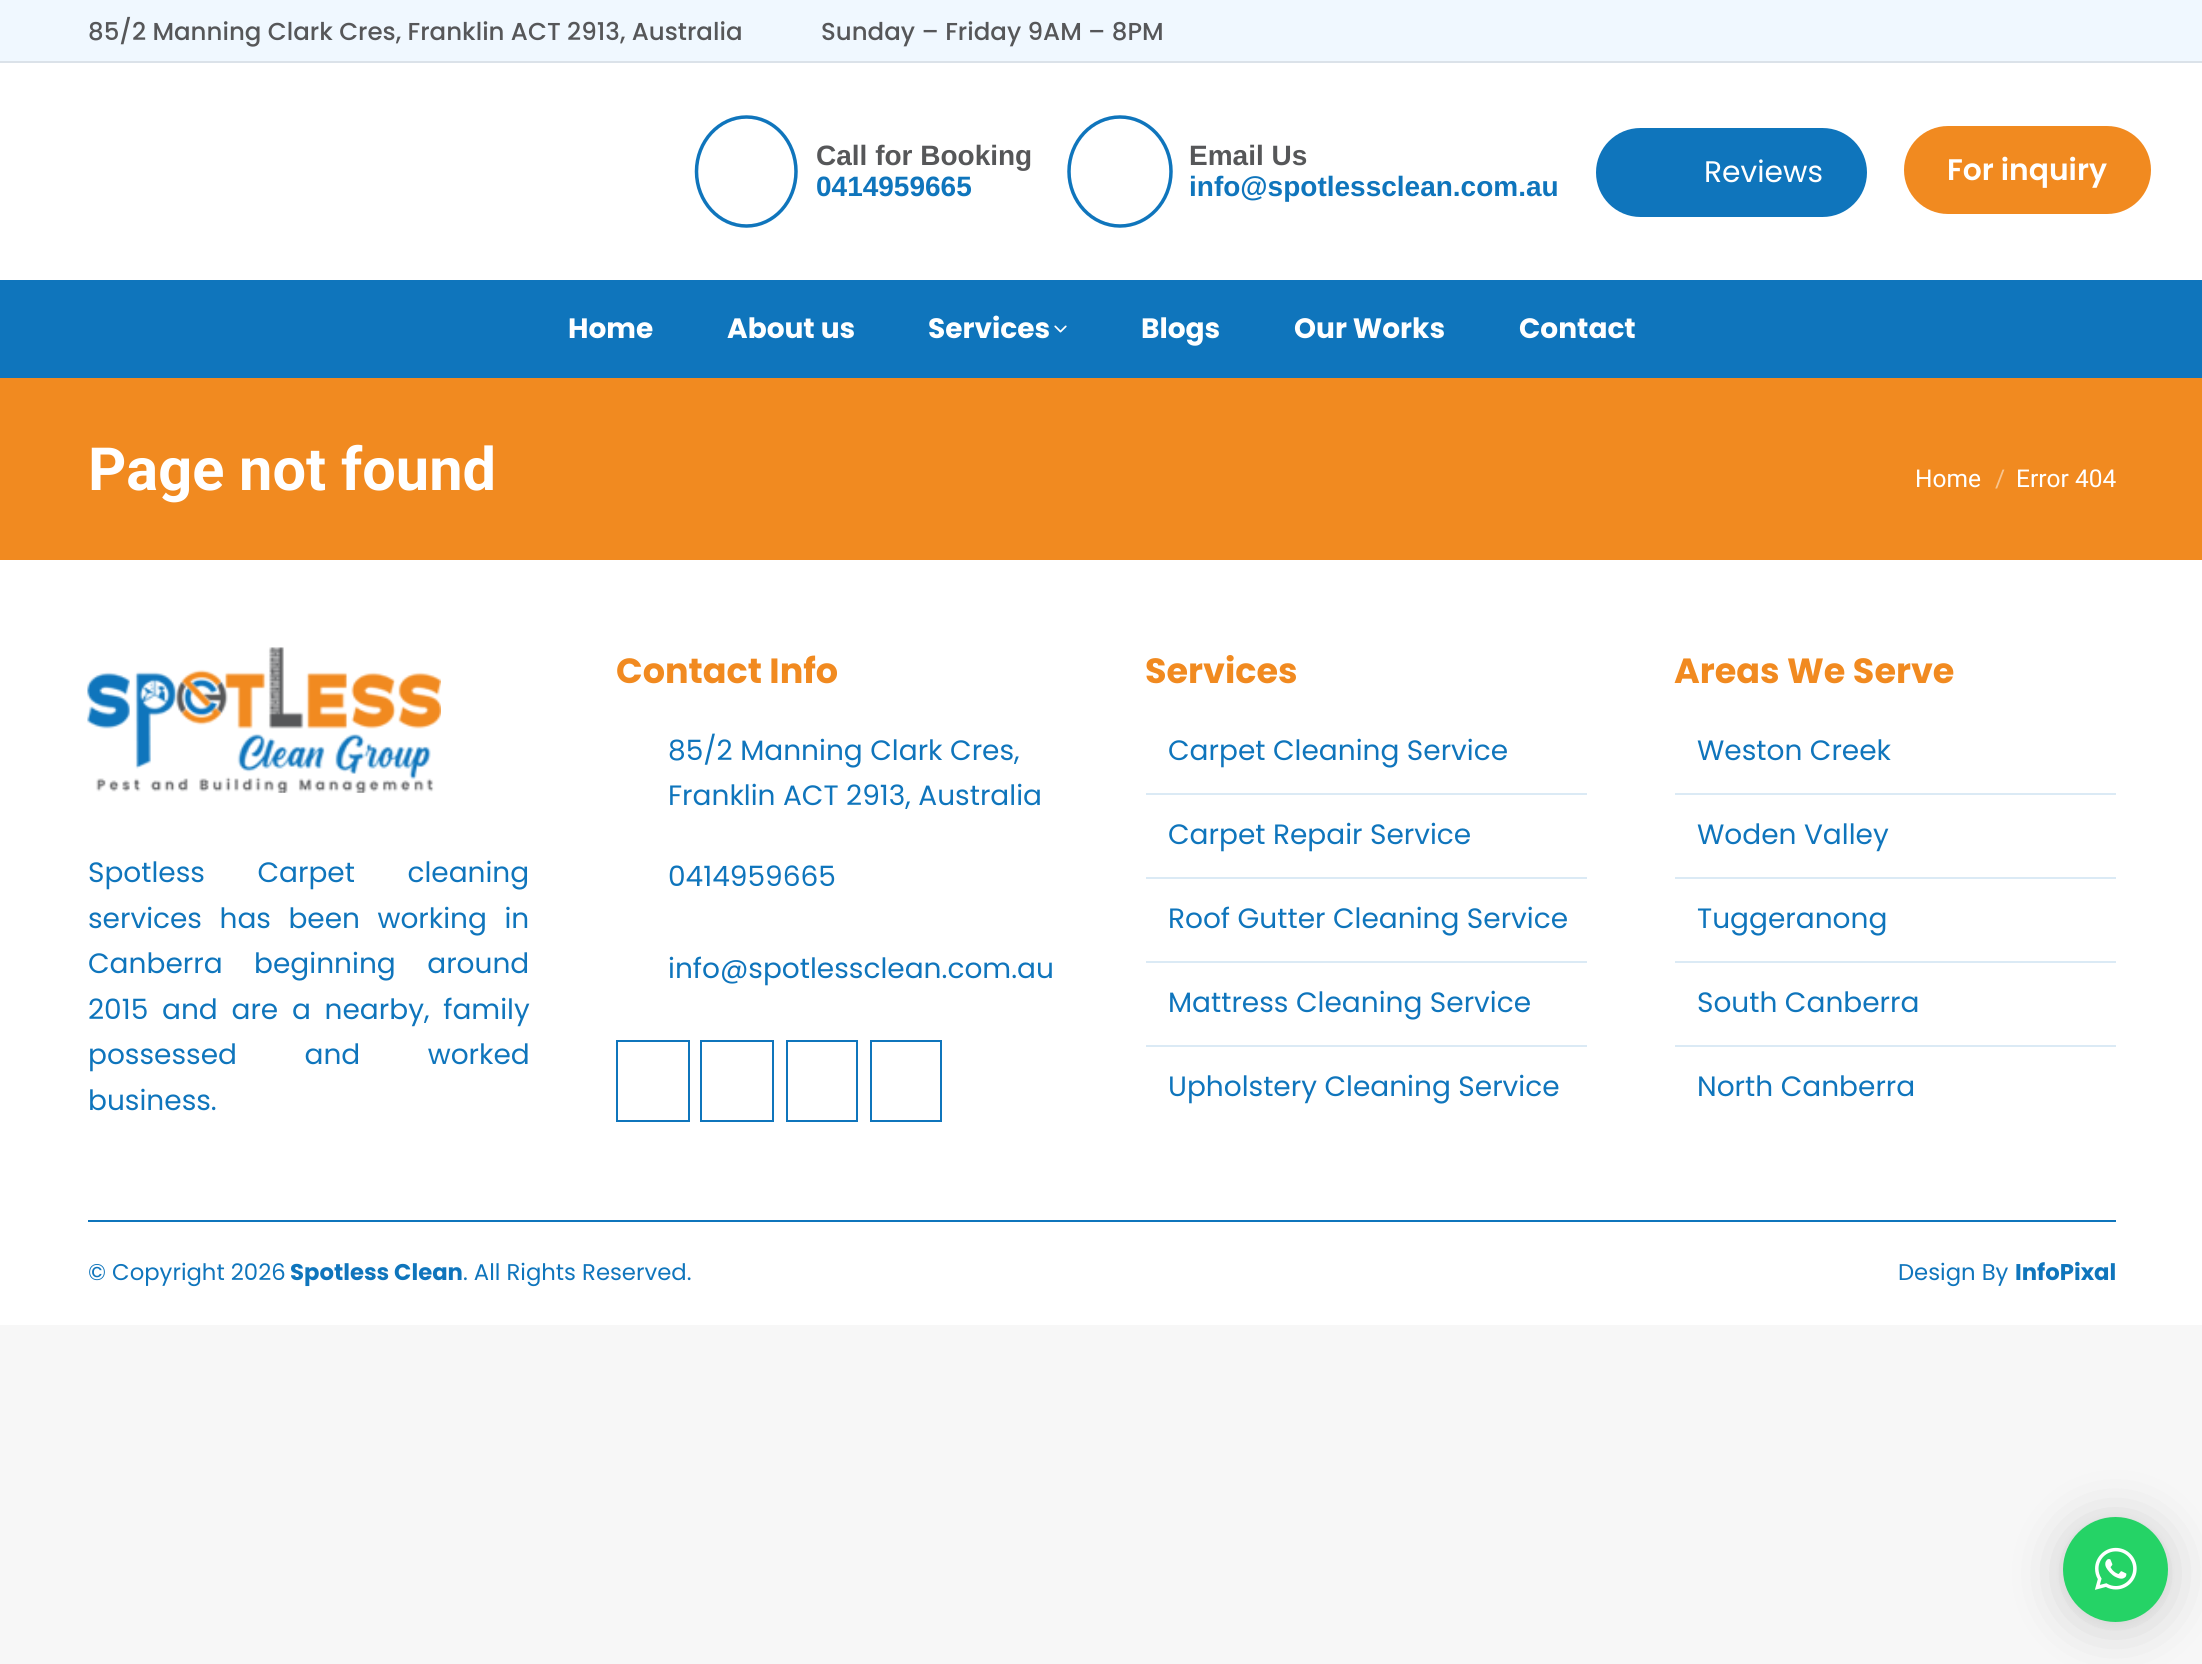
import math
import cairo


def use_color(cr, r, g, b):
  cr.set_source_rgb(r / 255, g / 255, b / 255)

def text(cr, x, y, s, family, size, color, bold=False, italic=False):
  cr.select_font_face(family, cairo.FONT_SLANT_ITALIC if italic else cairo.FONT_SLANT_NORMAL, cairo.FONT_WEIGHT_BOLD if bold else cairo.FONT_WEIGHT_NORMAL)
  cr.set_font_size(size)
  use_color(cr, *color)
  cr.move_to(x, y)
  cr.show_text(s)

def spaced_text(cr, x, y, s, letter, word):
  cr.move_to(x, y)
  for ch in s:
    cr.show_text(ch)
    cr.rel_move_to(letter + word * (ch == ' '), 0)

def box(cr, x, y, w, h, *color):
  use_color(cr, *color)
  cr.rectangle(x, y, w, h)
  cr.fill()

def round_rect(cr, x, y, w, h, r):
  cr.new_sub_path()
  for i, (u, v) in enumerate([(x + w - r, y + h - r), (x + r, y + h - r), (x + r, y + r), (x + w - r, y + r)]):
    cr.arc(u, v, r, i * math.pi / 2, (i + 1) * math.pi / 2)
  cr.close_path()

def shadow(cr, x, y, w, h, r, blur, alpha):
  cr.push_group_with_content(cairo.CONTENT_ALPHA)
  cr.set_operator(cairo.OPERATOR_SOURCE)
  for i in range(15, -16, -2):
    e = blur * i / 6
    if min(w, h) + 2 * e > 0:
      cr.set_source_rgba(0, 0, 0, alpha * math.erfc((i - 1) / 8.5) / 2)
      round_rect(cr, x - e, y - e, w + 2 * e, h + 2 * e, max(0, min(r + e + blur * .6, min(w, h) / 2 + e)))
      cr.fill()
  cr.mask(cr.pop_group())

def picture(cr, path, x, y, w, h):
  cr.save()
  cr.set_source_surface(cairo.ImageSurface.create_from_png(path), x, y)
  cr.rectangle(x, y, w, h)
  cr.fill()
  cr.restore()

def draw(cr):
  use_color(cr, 247, 247, 247)
  cr.paint()
  box(cr, 0, 63, 2202, 1262, 255, 255, 255)
  box(cr, 0, 0, 2202, 61, 240, 248, 255)
  box(cr, 0, 61, 2202, 2, 219, 226, 233)
  cr.new_path()
  cr.move_to(746.5, 117)
  cr.curve_to(774, 117, 796, 141.5, 796, 171.5)
  cr.curve_to(796, 201.5, 774, 226, 746.5, 226)
  cr.curve_to(719, 226, 696.5, 201.5, 696.5, 171.5)
  cr.curve_to(696.5, 141.5, 719, 117, 746.5, 117)
  cr.close_path()
  use_color(cr, 15, 117, 188)
  cr.set_line_width(3.5)
  cr.stroke()
  cr.new_path()
  cr.move_to(1120, 117)
  cr.curve_to(1148, 117, 1171, 141.5, 1171, 171.5)
  cr.curve_to(1171, 201.5, 1148, 226, 1120, 226)
  cr.curve_to(1092, 226, 1069, 201.5, 1069, 171.5)
  cr.curve_to(1069, 141.5, 1092, 117, 1120, 117)
  cr.close_path()
  cr.stroke()
  round_rect(cr, 1595, 127, 273, 91, 45.5)
  cr.fill_preserve()
  use_color(cr, 255, 255, 255)
  cr.set_line_width(2)
  cr.stroke()
  use_color(cr, 241, 138, 32)
  round_rect(cr, 1904, 126, 247, 88, 44)
  cr.fill()
  box(cr, 0, 280, 2202, 98, 15, 117, 188)
  picture(cr, "img_01.png", 1054, 325, 13, 8)
  box(cr, 0, 378, 2202, 182, 241, 138, 32)
  picture(cr, "img_02.png", 87, 647, 354, 146)
  cr.rectangle(617, 1041, 72, 80)
  use_color(cr, 15, 117, 188)
  cr.stroke()
  cr.rectangle(701, 1041, 72, 80)
  cr.stroke()
  cr.rectangle(787, 1041, 70, 80)
  cr.stroke()
  cr.rectangle(871, 1041, 70, 80)
  cr.stroke()
  box(cr, 1146, 793, 441, 2, 219, 234, 245)
  box(cr, 1146, 877, 441, 2, 219, 234, 245)
  box(cr, 1146, 961, 441, 2, 219, 234, 245)
  box(cr, 1146, 1045, 441, 2, 219, 234, 245)
  box(cr, 1675, 793, 441, 2, 219, 234, 245)
  box(cr, 1675, 877, 441, 2, 219, 234, 245)
  box(cr, 1675, 961, 441, 2, 219, 234, 245)
  box(cr, 1675, 1045, 441, 2, 219, 234, 245)
  box(cr, 88, 1220, 2028, 2, 15, 117, 188)
  use_color(cr, 0, 0, 0)
  shadow(cr, 2063, 1521, 105, 105, 52.5, 28, 0.16)
  shadow(cr, 2063, 1519, 105, 105, 52.5, 5, 0.06)
  use_color(cr, 37, 211, 102)
  cr.arc(2115.5, 1569.5, 52.5, 0, 2 * math.pi)
  cr.fill()
  picture(cr, "img_03.png", 2094, 1547, 43, 43)
  text(cr, 88, 40, "85/2 Manning Clark Cres, Franklin ACT 2913, Australia", "Poppins Medium", 24.5, (86, 87, 89))
  text(cr, 821, 40, "Sunday – Friday 9AM – 8PM", "Poppins Medium", 24.5, (86, 87, 89))
  text(cr, 816, 165, "Call for Booking", "Liberation Sans", 28, (86, 87, 89), bold=True)
  text(cr, 816, 196, "0414959665", "Liberation Sans", 28, (15, 117, 188), bold=True)
  text(cr, 1189, 165, "Email Us", "Liberation Sans", 28, (86, 87, 89), bold=True)
  text(cr, 1189, 196, "info@spotlessclean.com.au", "Liberation Sans", 28, (15, 117, 188), bold=True)
  text(cr, 1704, 182, "Reviews", "Poppins", 29.75, (255, 255, 255))
  text(cr, 1947, 180, "For inquiry", "Poppins SemiBold", 29.75, (255, 255, 255))
  text(cr, 568, 338, "Home", "Poppins", 28, (255, 255, 255), bold=True)
  text(cr, 727, 338, "About us", "Poppins", 28, (255, 255, 255), bold=True)
  text(cr, 928, 338, "Services", "Poppins", 28, (255, 255, 255), bold=True)
  text(cr, 1141, 338, "Blogs", "Poppins", 28, (255, 255, 255), bold=True)
  text(cr, 1294, 338, "Our Works", "Poppins", 28, (255, 255, 255), bold=True)
  text(cr, 1519, 338, "Contact", "Poppins", 28, (255, 255, 255), bold=True)
  text(cr, 88, 490, "Page not found", "Roboto", 59.5, (255, 255, 255), bold=True)
  text(cr, 1915, 487, "Home", "Roboto", 24.5, (255, 255, 255))
  text(cr, 1995, 487, "/", "Roboto", 24.5, (248, 197, 144))
  text(cr, 2016, 487, "Error 404", "Roboto", 24.5, (255, 255, 255))
  cr.select_font_face("Poppins")
  cr.set_font_size(28)
  use_color(cr, 15, 117, 188)
  spaced_text(cr, 88, 882, "Spotless Carpet cleaning", 0, 45)
  spaced_text(cr, 88, 928, "services has been working in", 0, 10)
  spaced_text(cr, 88, 973, "Canberra beginning around", 0, 24)
  spaced_text(cr, 88, 1019, "2015 and are a nearby, family", 0, 6.25)
  spaced_text(cr, 88, 1064, "possessed and worked", 0, 60)
  text(cr, 88, 1110, "business.", "Poppins", 28, (15, 117, 188))
  text(cr, 616, 683, "Contact Info", "Poppins", 35, (241, 138, 32), bold=True)
  text(cr, 668, 760, "85/2 Manning Clark Cres,", "Poppins", 28, (15, 117, 188))
  text(cr, 668, 805, "Franklin ACT 2913, Australia", "Poppins", 28, (15, 117, 188))
  text(cr, 668, 886, "0414959665", "Poppins", 28, (15, 117, 188))
  text(cr, 668, 978, "info@spotlessclean.com.au", "Poppins", 28, (15, 117, 188))
  text(cr, 1145, 683, "Services", "Poppins", 35, (241, 138, 32), bold=True)
  text(cr, 1168, 760, "Carpet Cleaning Service", "Poppins", 28, (15, 117, 188))
  text(cr, 1168, 844, "Carpet Repair Service", "Poppins", 28, (15, 117, 188))
  text(cr, 1168, 928, "Roof Gutter Cleaning Service", "Poppins", 28, (15, 117, 188))
  text(cr, 1168, 1012, "Mattress Cleaning Service", "Poppins", 28, (15, 117, 188))
  text(cr, 1168, 1096, "Upholstery Cleaning Service", "Poppins", 28, (15, 117, 188))
  text(cr, 1674, 683, "Areas We Serve", "Poppins", 35, (241, 138, 32), bold=True)
  text(cr, 1697, 760, "Weston Creek", "Poppins", 28, (15, 117, 188))
  text(cr, 1697, 844, "Woden Valley", "Poppins", 28, (15, 117, 188))
  text(cr, 1697, 928, "Tuggeranong", "Poppins", 28, (15, 117, 188))
  text(cr, 1697, 1012, "South Canberra", "Poppins", 28, (15, 117, 188))
  text(cr, 1697, 1096, "North Canberra", "Poppins", 28, (15, 117, 188))
  text(cr, 88, 1280, "© Copyright 2026", "Poppins", 22.75, (15, 117, 188))
  text(cr, 290, 1280, "Spotless Clean", "Poppins", 22.75, (15, 117, 188), bold=True)
  text(cr, 463, 1280, ". All Rights Reserved.", "Poppins", 22.75, (15, 117, 188))
  text(cr, 1898, 1280, "Design By", "Poppins", 22.75, (15, 117, 188))
  text(cr, 2015, 1280, "InfoPixal", "Poppins", 22.75, (15, 117, 188), bold=True)


surface = cairo.ImageSurface(cairo.FORMAT_RGB24, 2202, 1664)
cr = cairo.Context(surface)
options = cairo.FontOptions()
options.set_hint_metrics(cairo.HINT_METRICS_OFF)
options.set_hint_style(cairo.HINT_STYLE_NONE)
cr.set_font_options(options)
cr.set_miter_limit(4)
draw(cr)
surface.write_to_png("out.png")
